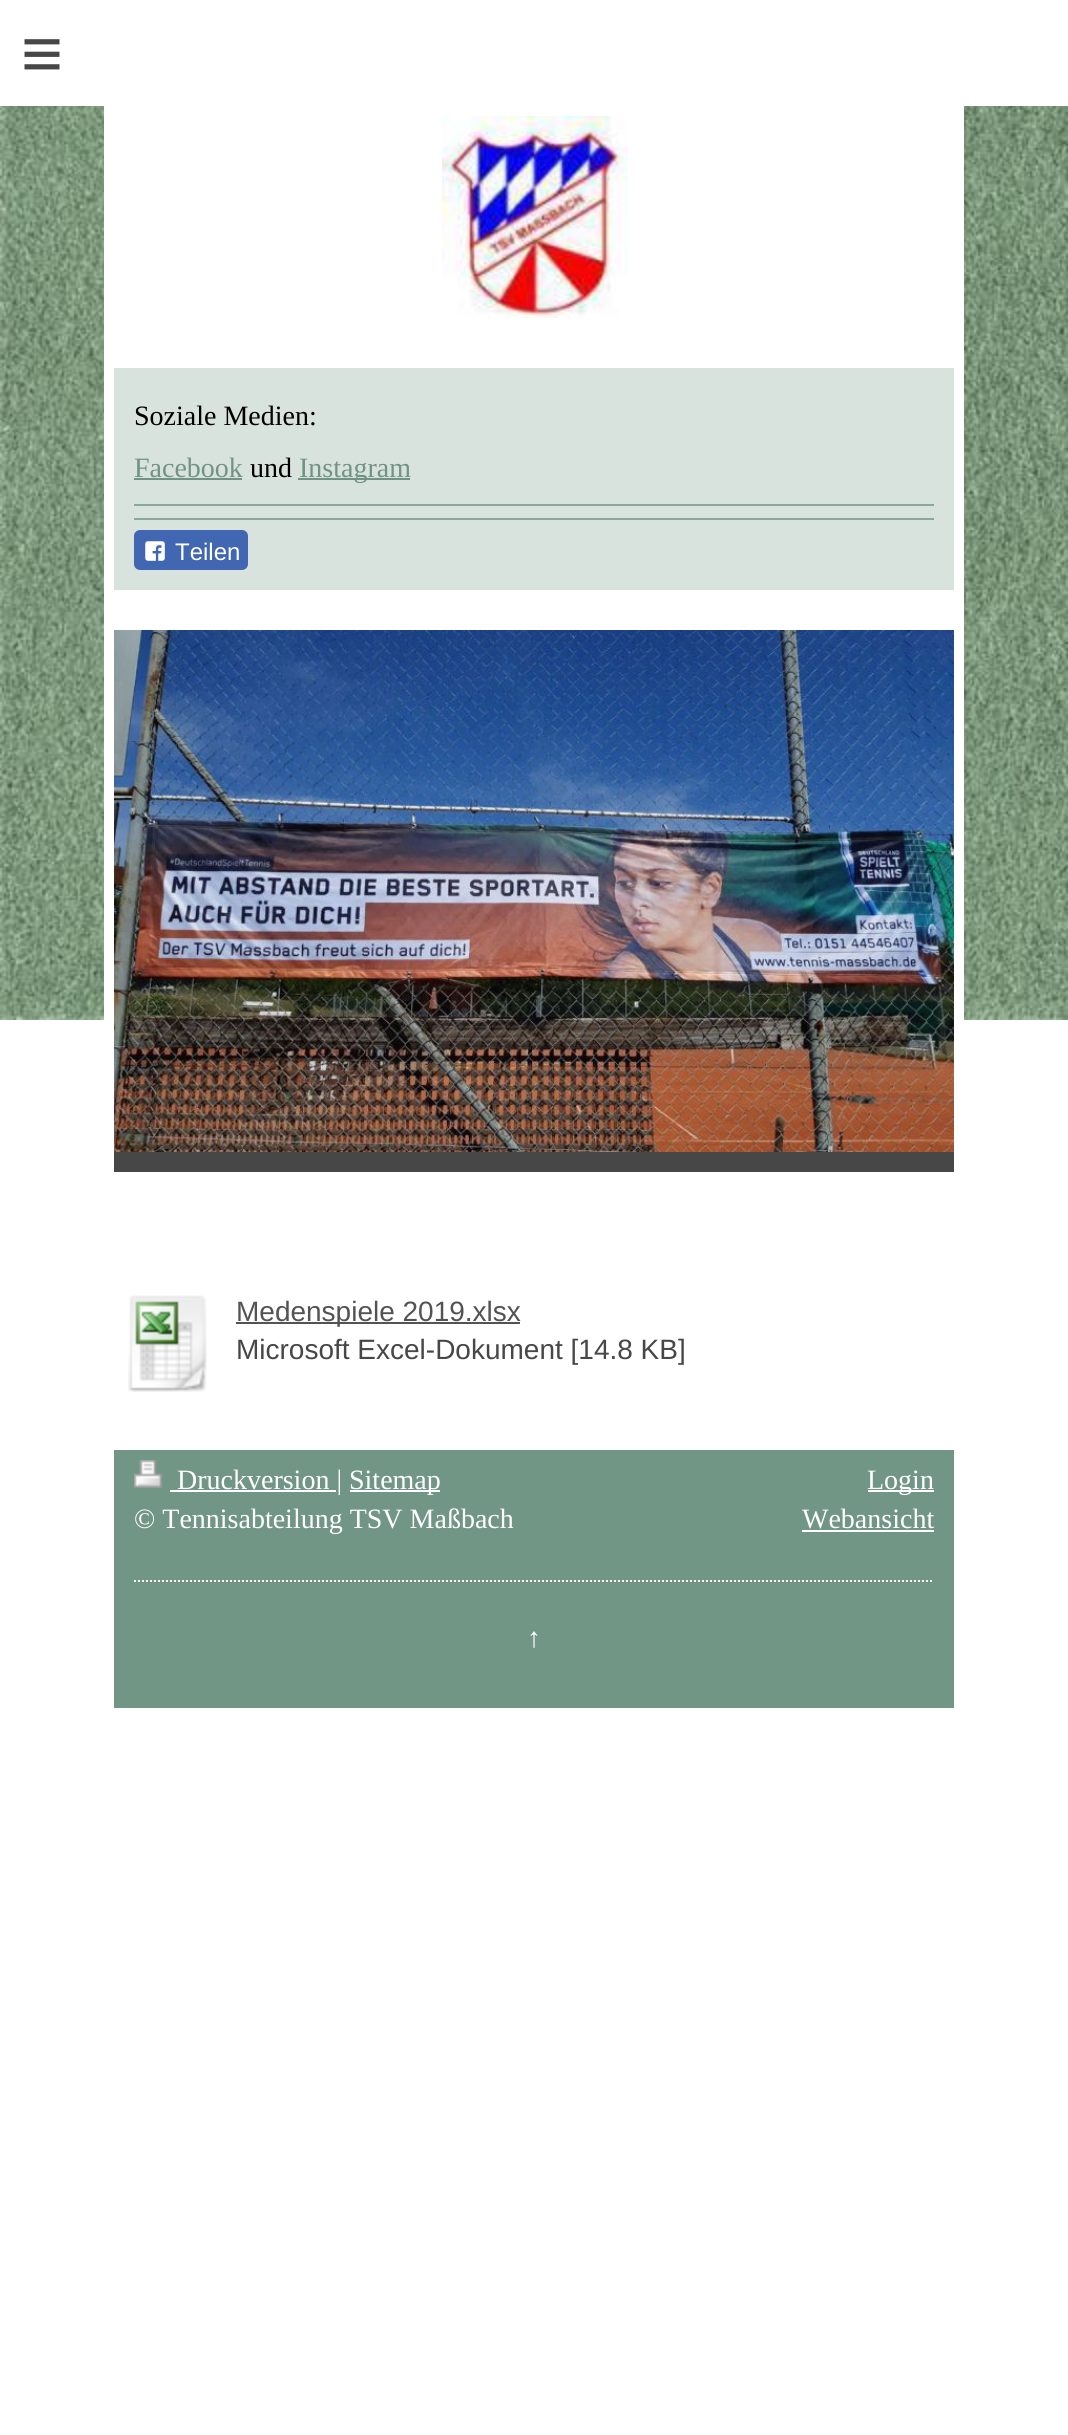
import math
import cairo


def use_color(cr, r, g, b):
  cr.set_source_rgb(r / 255, g / 255, b / 255)

def text(cr, x, y, s, family, size, color, bold=False, italic=False):
  cr.select_font_face(family, cairo.FONT_SLANT_ITALIC if italic else cairo.FONT_SLANT_NORMAL, cairo.FONT_WEIGHT_BOLD if bold else cairo.FONT_WEIGHT_NORMAL)
  cr.set_font_size(size)
  use_color(cr, *color)
  cr.move_to(x, y)
  cr.show_text(s)

def spaced_text(cr, x, y, s, letter, word):
  cr.move_to(x, y)
  for ch in s:
    cr.show_text(ch)
    cr.rel_move_to(letter + word * (ch == ' '), 0)

def box(cr, x, y, w, h, *color):
  use_color(cr, *color)
  cr.rectangle(x, y, w, h)
  cr.fill()

def round_rect(cr, x, y, w, h, r):
  cr.new_sub_path()
  for i, (u, v) in enumerate([(x + w - r, y + h - r), (x + r, y + h - r), (x + r, y + r), (x + w - r, y + r)]):
    cr.arc(u, v, r, i * math.pi / 2, (i + 1) * math.pi / 2)
  cr.close_path()

def picture(cr, path, x, y, w, h):
  cr.save()
  cr.set_source_surface(cairo.ImageSurface.create_from_png(path), x, y)
  cr.rectangle(x, y, w, h)
  cr.fill()
  cr.restore()

def draw(cr):
  use_color(cr, 255, 255, 255)
  cr.paint()
  picture(cr, "img_01.png", 0, 106, 1068, 914)
  box(cr, 104, 106, 860, 914, 255, 255, 255)
  picture(cr, "img_02.png", 442, 116, 186, 202)
  box(cr, 114, 368, 840, 222, 217, 227, 222)
  box(cr, 134, 478, 108, 2, 113, 147, 130)
  box(cr, 298, 478, 112, 2, 113, 147, 130)
  box(cr, 134, 504, 800, 2, 138, 169, 153)
  box(cr, 134, 518, 800, 2, 138, 169, 153)
  use_color(cr, 66, 103, 178)
  round_rect(cr, 134, 530, 114, 40, 6)
  cr.fill()
  picture(cr, "img_03.png", 145, 541, 20, 20)
  box(cr, 114, 1152, 840, 20, 71, 71, 71)
  picture(cr, "img_04.png", 114, 630, 840, 522)
  picture(cr, "img_05.png", 128, 1295, 79, 97)
  box(cr, 236, 1322, 284, 2, 83, 83, 83)
  box(cr, 114, 1450, 840, 258, 113, 150, 134)
  picture(cr, "img_06.png", 134, 1460, 29, 28)
  box(cr, 170, 1490, 166, 2, 255, 255, 255)
  box(cr, 350, 1490, 90, 2, 255, 255, 255)
  box(cr, 868, 1490, 66, 2, 255, 255, 255)
  box(cr, 802, 1530, 132, 2, 255, 255, 255)
  cr.new_path()
  cr.move_to(134, 1581)
  cr.line_to(934, 1581)
  cr.set_dash([2, 2])
  cr.stroke()
  cr.select_font_face("Liberation Sans")
  cr.set_font_size(72)
  use_color(cr, 71, 71, 71)
  spaced_text(cr, 21, 78, "≡", 21, 0)
  text(cr, 134, 425, "Soziale Medien:", "Liberation Serif", 28, (0, 0, 0))
  text(cr, 134, 477, "Facebook", "Liberation Serif", 28, (113, 147, 130))
  text(cr, 250, 477, "und", "Liberation Serif", 28, (0, 0, 0))
  text(cr, 299, 477, "Instagram", "Liberation Serif", 28, (113, 147, 130))
  text(cr, 175, 560, "Teilen", "Liberation Sans", 24, (255, 255, 255))
  text(cr, 236, 1321, "Medenspiele 2019.xlsx", "Liberation Sans", 28, (83, 83, 83))
  text(cr, 236, 1359, "Microsoft Excel-Dokument [14.8 KB]", "Liberation Sans", 28, (71, 71, 71))
  text(cr, 177, 1489, "Druckversion |", "Liberation Serif", 28, (255, 255, 255))
  text(cr, 349, 1489, "Sitemap", "Liberation Serif", 28, (255, 255, 255))
  text(cr, 134, 1528, "© Tennisabteilung TSV Maßbach", "Liberation Serif", 28, (255, 255, 255))
  text(cr, 867, 1489, "Login", "Liberation Serif", 28, (255, 255, 255))
  text(cr, 802, 1528, "Webansicht", "Liberation Serif", 28, (255, 255, 255))
  text(cr, 527, 1647, "↑", "Liberation Serif", 28, (255, 255, 255))


surface = cairo.ImageSurface(cairo.FORMAT_RGB24, 1068, 2435)
cr = cairo.Context(surface)
options = cairo.FontOptions()
options.set_hint_metrics(cairo.HINT_METRICS_OFF)
options.set_hint_style(cairo.HINT_STYLE_NONE)
cr.set_font_options(options)
cr.set_miter_limit(4)
draw(cr)
surface.write_to_png("out.png")
